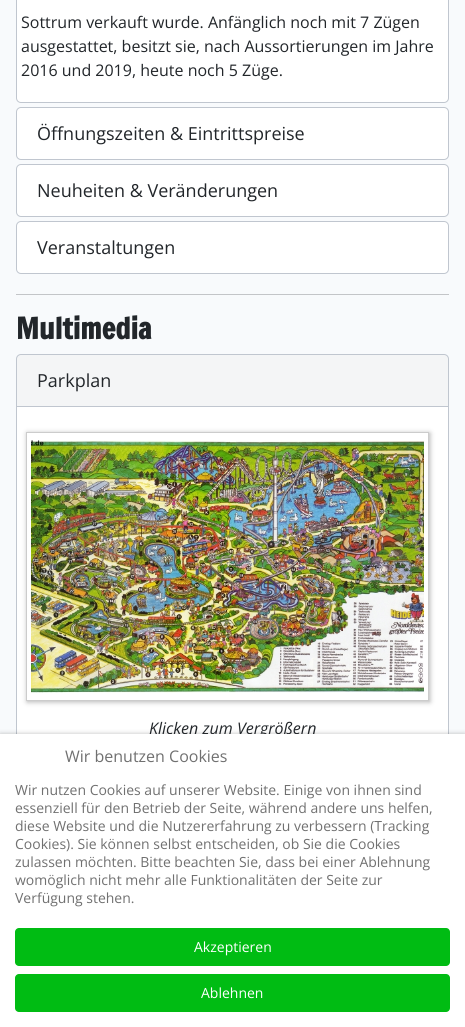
import math
import cairo


def use_color(cr, r, g, b):
  cr.set_source_rgb(r / 255, g / 255, b / 255)

def text(cr, x, y, s, family, size, color, bold=False, italic=False):
  cr.select_font_face(family, cairo.FONT_SLANT_ITALIC if italic else cairo.FONT_SLANT_NORMAL, cairo.FONT_WEIGHT_BOLD if bold else cairo.FONT_WEIGHT_NORMAL)
  cr.set_font_size(size)
  use_color(cr, *color)
  cr.move_to(x, y)
  cr.show_text(s)

def box(cr, x, y, w, h, *color):
  use_color(cr, *color)
  cr.rectangle(x, y, w, h)
  cr.fill()

def round_rect(cr, x, y, w, h, r):
  cr.new_sub_path()
  for i, (u, v) in enumerate([(x + w - r, y + h - r), (x + r, y + h - r), (x + r, y + r), (x + w - r, y + r)]):
    cr.arc(u, v, r, i * math.pi / 2, (i + 1) * math.pi / 2)
  cr.close_path()

def shadow(cr, x, y, w, h, r, blur, alpha):
  cr.push_group_with_content(cairo.CONTENT_ALPHA)
  cr.set_operator(cairo.OPERATOR_SOURCE)
  for i in range(15, -16, -2):
    e = blur * i / 6
    if min(w, h) + 2 * e > 0:
      cr.set_source_rgba(0, 0, 0, alpha * math.erfc((i - 1) / 8.5) / 2)
      round_rect(cr, x - e, y - e, w + 2 * e, h + 2 * e, max(0, min(r + e + blur * .6, min(w, h) / 2 + e)))
      cr.fill()
  cr.mask(cr.pop_group())

def picture(cr, path, x, y, w, h):
  cr.save()
  cr.set_source_surface(cairo.ImageSurface.create_from_png(path), x, y)
  cr.rectangle(x, y, w, h)
  cr.fill()
  cr.restore()

def draw(cr):
  use_color(cr, 248, 250, 252)
  cr.paint()
  use_color(cr, 255, 255, 255)
  cr.new_path()
  cr.move_to(16.5, -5.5)
  cr.line_to(448.5, -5.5)
  cr.line_to(448.5, 98)
  cr.curve_to(448.5, 100.5, 446.5, 102.5, 444, 102.5)
  cr.line_to(21, 102.5)
  cr.curve_to(18.5, 102.5, 16.5, 100.5, 16.5, 98)
  cr.close_path()
  cr.fill_preserve()
  use_color(cr, 192, 198, 207)
  cr.set_line_width(1)
  cr.stroke()
  use_color(cr, 255, 255, 255)
  round_rect(cr, 16.5, 107.5, 432, 52, 4.5)
  cr.fill_preserve()
  use_color(cr, 192, 198, 207)
  cr.stroke()
  use_color(cr, 255, 255, 255)
  round_rect(cr, 16.5, 164.5, 432, 52, 4.5)
  cr.fill_preserve()
  use_color(cr, 192, 198, 207)
  cr.stroke()
  use_color(cr, 255, 255, 255)
  round_rect(cr, 16.5, 221.5, 432, 52, 4.5)
  cr.fill_preserve()
  use_color(cr, 192, 198, 207)
  cr.stroke()
  box(cr, 16, 294, 433, 1, 195, 197, 200)
  box(cr, 17, 407, 431, 327, 255, 255, 255)
  cr.rectangle(16.5, 406.5, 432, 394)
  use_color(cr, 192, 198, 207)
  cr.stroke()
  use_color(cr, 244, 245, 246)
  cr.new_path()
  cr.move_to(21, 354.5)
  cr.line_to(444, 354.5)
  cr.curve_to(446.5, 354.5, 448.5, 356.5, 448.5, 359)
  cr.line_to(448.5, 406.5)
  cr.line_to(16.5, 406.5)
  cr.line_to(16.5, 359)
  cr.curve_to(16.5, 356.5, 18.5, 354.5, 21, 354.5)
  cr.close_path()
  cr.fill_preserve()
  use_color(cr, 192, 198, 207)
  cr.stroke()
  cr.save()
  cr.set_fill_rule(cairo.FILL_RULE_EVEN_ODD)
  cr.new_path()
  cr.move_to(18, 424)
  cr.line_to(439, 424)
  cr.line_to(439, 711)
  cr.line_to(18, 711)
  cr.close_path()
  cr.move_to(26, 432)
  cr.line_to(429, 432)
  cr.line_to(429, 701)
  cr.line_to(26, 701)
  cr.close_path()
  cr.clip()
  use_color(cr, 181, 181, 181)
  shadow(cr, 27, 433, 403, 269, 0, 2.5, 1)
  cr.restore()
  cr.rectangle(26.5, 432.5, 402, 268)
  use_color(cr, 204, 204, 204)
  cr.stroke()
  picture(cr, "img_01.png", 31, 440, 393, 253)
  use_color(cr, 0, 0, 0)
  shadow(cr, 0, 734, 465, 293, 0, 2.5, 0.25)
  text(cr, 21, 28, "Sottrum verkauft wurde. Anfänglich noch mit 7 Zügen", "Open Sans", 16, (34, 38, 42))
  text(cr, 21, 52, "ausgestattet, besitzt sie, nach Aussortierungen im Jahre", "Open Sans", 16, (34, 38, 42))
  text(cr, 21, 76, "2016 und 2019, heute noch 5 Züge.", "Open Sans", 16, (34, 38, 42))
  text(cr, 37, 140, "Öffnungszeiten & Eintrittspreise", "Open Sans", 18, (34, 38, 42))
  text(cr, 37, 197, "Neuheiten & Veränderungen", "Open Sans", 18, (34, 38, 42))
  text(cr, 37, 254, "Veranstaltungen", "Open Sans", 18, (34, 38, 42))
  text(cr, 16, 339, "Multimedia", "Francois One", 29, (34, 38, 42), bold=True)
  text(cr, 37, 387, "Parkplan", "Open Sans", 18, (34, 38, 42))
  text(cr, 149, 734, "Klicken zum Vergrößern", "Open Sans", 16, (34, 38, 42), italic=True)
  box(cr, 0, 734, 465, 293, 255, 255, 255)
  text(cr, 65, 762, "Wir benutzen Cookies", "Open Sans", 16, (112, 112, 112))
  text(cr, 15, 795, "Wir nutzen Cookies auf unserer Website. Einige von ihnen sind", "Open Sans", 14, (112, 112, 112))
  text(cr, 15, 813, "essenziell für den Betrieb der Seite, während andere uns helfen,", "Open Sans", 14, (112, 112, 112))
  text(cr, 15, 831, "diese Website und die Nutzererfahrung zu verbessern (Tracking", "Open Sans", 14, (112, 112, 112))
  text(cr, 15, 849, "Cookies). Sie können selbst entscheiden, ob Sie die Cookies", "Open Sans", 14, (112, 112, 112))
  text(cr, 15, 867, "zulassen möchten. Bitte beachten Sie, dass bei einer Ablehnung", "Open Sans", 14, (112, 112, 112))
  text(cr, 15, 885, "womöglich nicht mehr alle Funktionalitäten der Seite zur", "Open Sans", 14, (112, 112, 112))
  text(cr, 15, 903, "Verfügung stehen.", "Open Sans", 14, (112, 112, 112))
  use_color(cr, 0, 188, 19)
  round_rect(cr, 15, 928, 435, 38, 4)
  cr.fill()
  text(cr, 194, 952, "Akzeptieren", "Open Sans", 14, (255, 255, 255))
  use_color(cr, 0, 188, 19)
  round_rect(cr, 15, 974, 435, 38, 4)
  cr.fill()
  text(cr, 201, 998, "Ablehnen", "Open Sans", 14, (255, 255, 255))


surface = cairo.ImageSurface(cairo.FORMAT_RGB24, 465, 1027)
cr = cairo.Context(surface)
options = cairo.FontOptions()
options.set_hint_metrics(cairo.HINT_METRICS_OFF)
options.set_hint_style(cairo.HINT_STYLE_NONE)
cr.set_font_options(options)
cr.set_miter_limit(4)
draw(cr)
surface.write_to_png("out.png")
